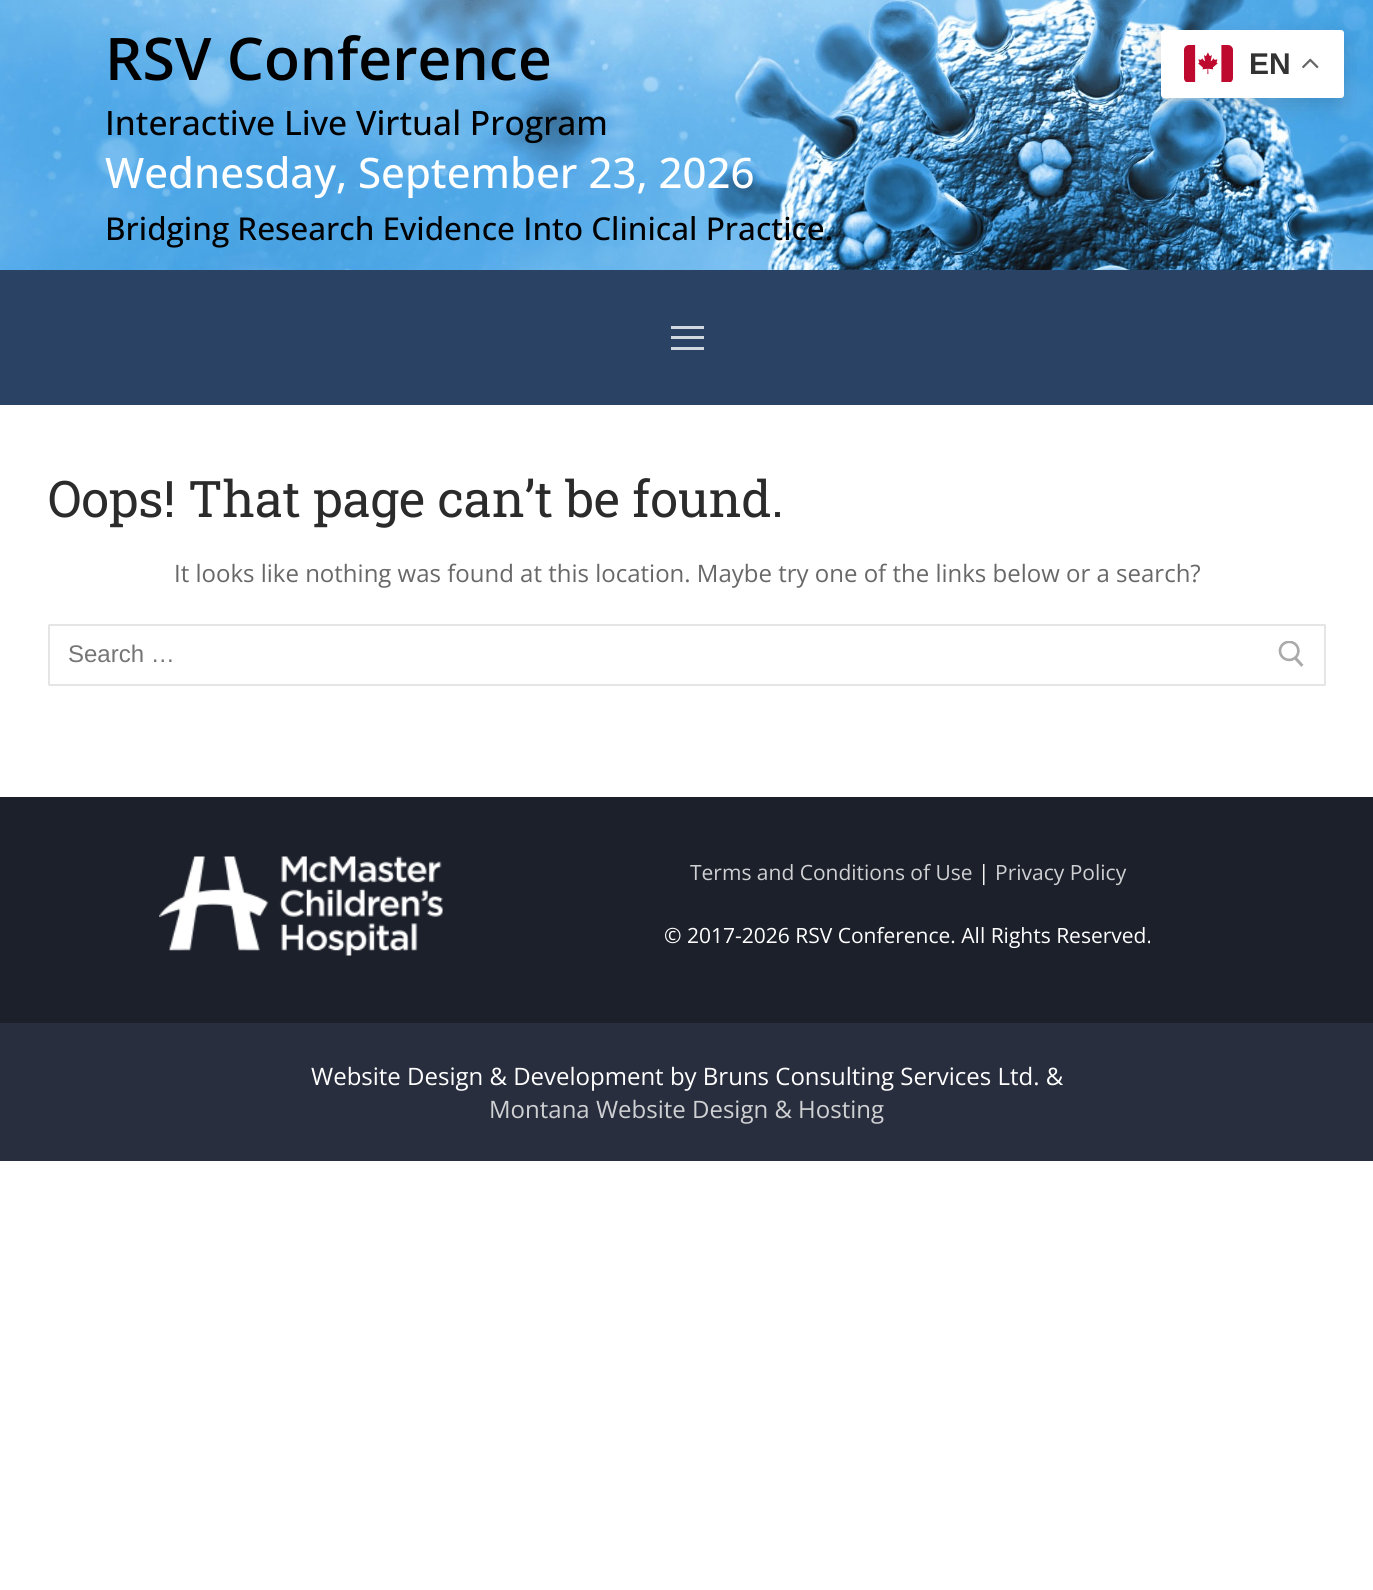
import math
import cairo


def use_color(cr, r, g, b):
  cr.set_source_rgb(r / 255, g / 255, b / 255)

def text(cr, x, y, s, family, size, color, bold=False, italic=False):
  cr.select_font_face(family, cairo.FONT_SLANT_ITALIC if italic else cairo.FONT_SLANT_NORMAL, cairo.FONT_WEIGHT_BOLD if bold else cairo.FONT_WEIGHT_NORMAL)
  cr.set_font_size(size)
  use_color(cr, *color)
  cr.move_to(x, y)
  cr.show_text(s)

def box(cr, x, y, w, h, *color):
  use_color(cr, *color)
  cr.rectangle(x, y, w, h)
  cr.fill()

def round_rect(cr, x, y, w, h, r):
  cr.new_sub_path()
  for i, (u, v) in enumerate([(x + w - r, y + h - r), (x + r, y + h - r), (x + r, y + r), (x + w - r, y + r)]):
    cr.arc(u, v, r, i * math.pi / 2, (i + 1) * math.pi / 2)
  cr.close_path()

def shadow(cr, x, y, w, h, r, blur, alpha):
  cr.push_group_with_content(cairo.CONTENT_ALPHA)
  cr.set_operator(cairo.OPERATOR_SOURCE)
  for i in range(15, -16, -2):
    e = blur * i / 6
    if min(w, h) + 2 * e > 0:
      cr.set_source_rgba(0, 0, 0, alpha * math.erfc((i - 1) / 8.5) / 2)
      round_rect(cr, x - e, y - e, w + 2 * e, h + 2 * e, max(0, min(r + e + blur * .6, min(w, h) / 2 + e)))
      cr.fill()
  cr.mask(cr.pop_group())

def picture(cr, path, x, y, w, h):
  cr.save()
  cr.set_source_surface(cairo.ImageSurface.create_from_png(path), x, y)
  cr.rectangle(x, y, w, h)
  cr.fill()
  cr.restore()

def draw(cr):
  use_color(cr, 255, 255, 255)
  cr.paint()
  picture(cr, "img_01.png", 0, 0, 1373, 270)
  box(cr, 0, 270, 1373, 135, 42, 67, 101)
  box(cr, 671, 336, 33, 3, 210, 216, 223)
  box(cr, 671, 326, 33, 3, 210, 216, 223)
  box(cr, 671, 347, 33, 3, 210, 216, 223)
  round_rect(cr, 49, 625, 1276, 60, 0.5)
  use_color(cr, 229, 229, 229)
  cr.stroke()
  picture(cr, "img_02.png", 1278, 641, 26, 26)
  box(cr, 0, 797, 1373, 226, 28, 32, 43)
  picture(cr, "img_03.png", 159, 856, 284, 100)
  box(cr, 0, 1023, 1373, 138, 40, 46, 62)
  use_color(cr, 0, 0, 0)
  shadow(cr, 1161, 38, 183, 67, 3, 11, 0.15)
  use_color(cr, 255, 255, 255)
  round_rect(cr, 1161, 30, 183, 68, 3)
  cr.fill()
  picture(cr, "img_04.png", 1184, 45, 49, 37)
  picture(cr, "img_05.png", 1302, 58, 17, 11)
  text(cr, 105, 80, "RSV Conference", "Open Sans SemiBold", 58.75, (0, 0, 0))
  text(cr, 105, 135, "Interactive Live Virtual Program", "Open Sans Medium", 33.6, (0, 0, 0))
  text(cr, 105, 188, "Wednesday, September 23, 2026", "Open Sans Medium", 42, (255, 255, 255))
  text(cr, 105, 240, "Bridging Research Evidence Into Clinical Practice.", "Open Sans Medium", 31.5, (0, 0, 0))
  text(cr, 48, 517, "Oops! That page can’t be found.", "Roboto Slab", 50.4, (43, 43, 43))
  text(cr, 174, 582, "It looks like nothing was found at this location. Maybe try one of the links below or a search?", "Open Sans", 24, (104, 104, 104))
  text(cr, 68, 662, "Search …", "Liberation Sans", 24, (117, 117, 117))
  text(cr, 690, 880, "Terms and Conditions of Use", "Open Sans", 21, (207, 208, 210))
  text(cr, 978, 880, "|", "Open Sans", 21, (255, 255, 255))
  text(cr, 995, 880, "Privacy Policy", "Open Sans", 21, (207, 208, 210))
  text(cr, 664, 943, "© 2017-2026 RSV Conference. All Rights Reserved.", "Open Sans", 21, (255, 255, 255))
  text(cr, 311, 1085, "Website Design & Development by Bruns Consulting Services Ltd. &", "Open Sans", 24, (255, 255, 255))
  text(cr, 489, 1118, "Montana Website Design & Hosting", "Open Sans", 24, (207, 208, 210))
  text(cr, 1249, 74, "EN", "Liberation Sans", 30, (51, 51, 51), bold=True)


surface = cairo.ImageSurface(cairo.FORMAT_RGB24, 1373, 1590)
cr = cairo.Context(surface)
options = cairo.FontOptions()
options.set_hint_metrics(cairo.HINT_METRICS_OFF)
options.set_hint_style(cairo.HINT_STYLE_NONE)
cr.set_font_options(options)
cr.set_miter_limit(4)
draw(cr)
surface.write_to_png("out.png")
